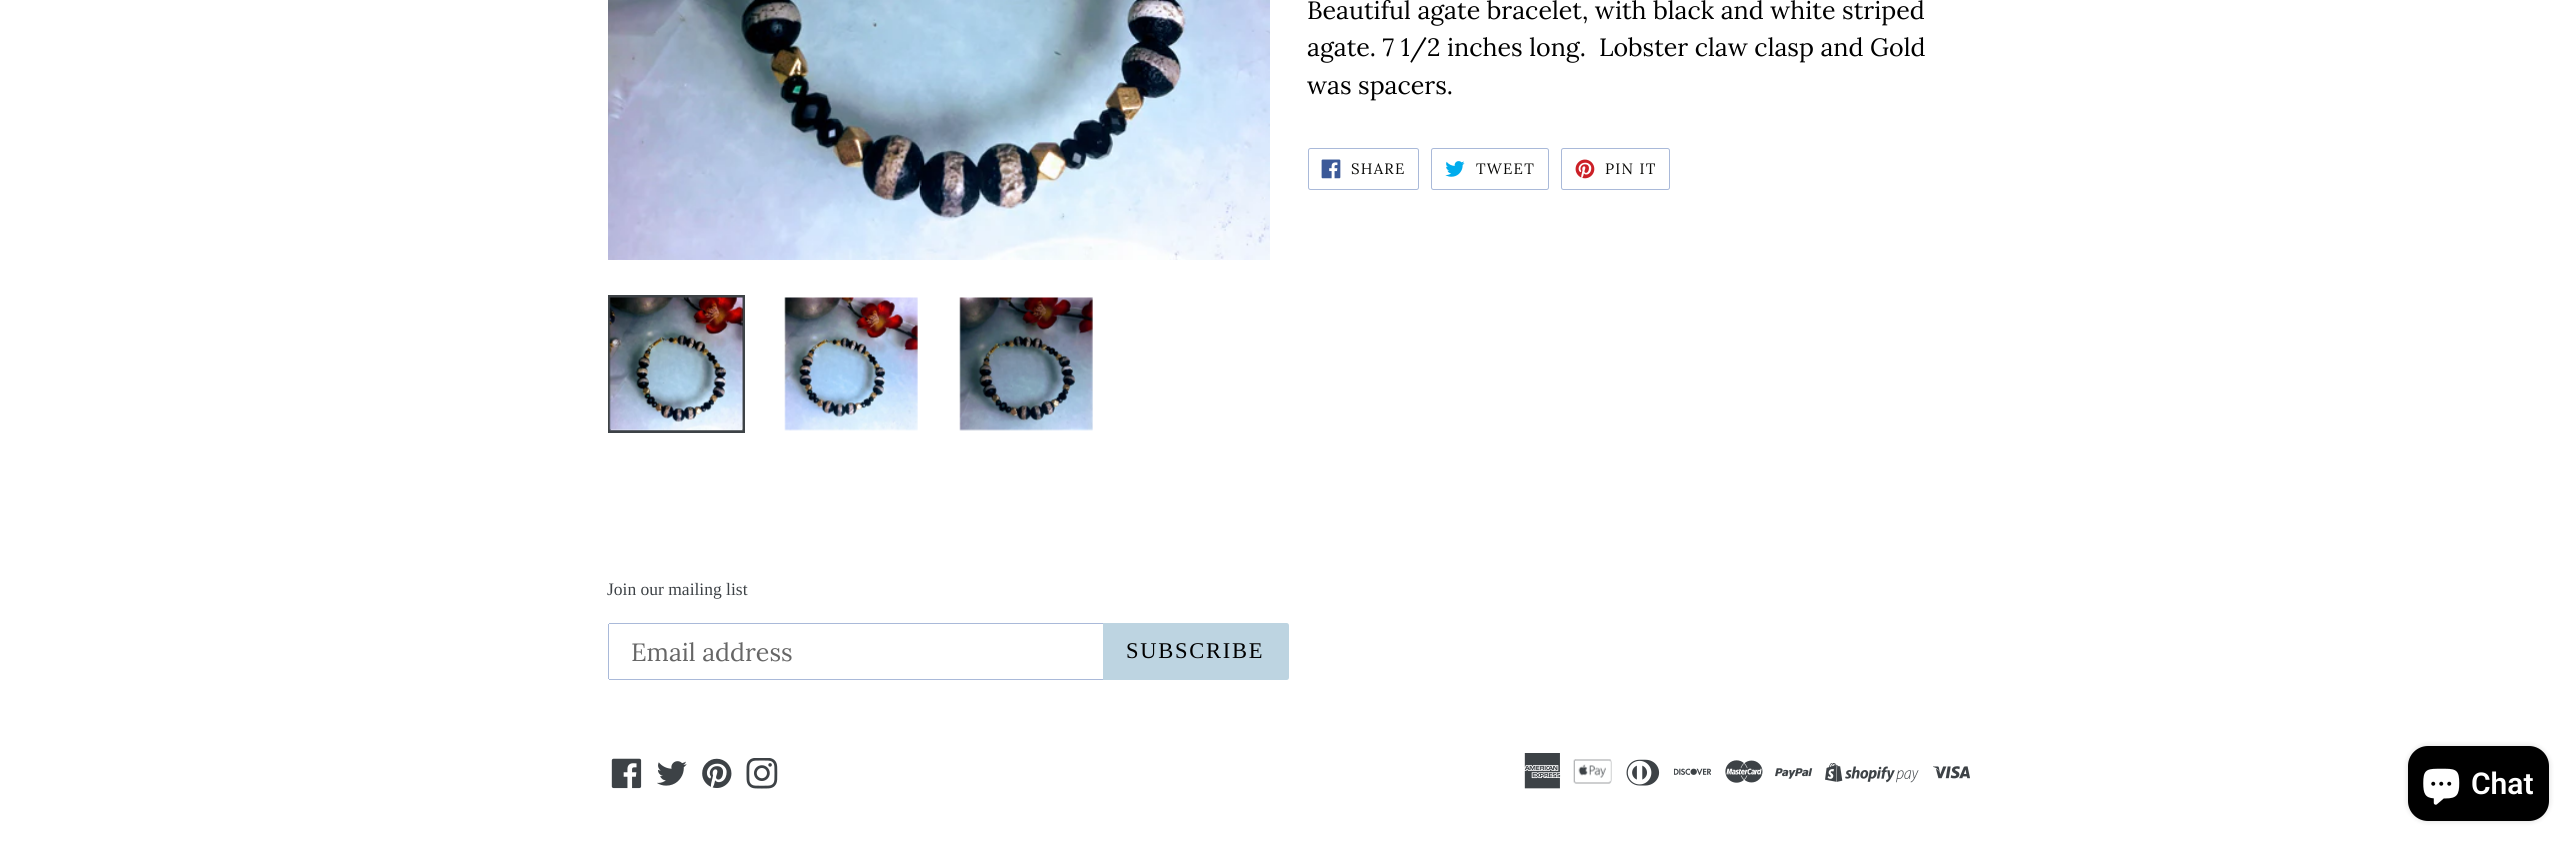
import math
import cairo


def use_color(cr, r, g, b):
  cr.set_source_rgb(r / 255, g / 255, b / 255)

def text(cr, x, y, s, family, size, color, bold=False, italic=False):
  cr.select_font_face(family, cairo.FONT_SLANT_ITALIC if italic else cairo.FONT_SLANT_NORMAL, cairo.FONT_WEIGHT_BOLD if bold else cairo.FONT_WEIGHT_NORMAL)
  cr.set_font_size(size)
  use_color(cr, *color)
  cr.move_to(x, y)
  cr.show_text(s)

def spaced_text(cr, x, y, s, letter, word):
  cr.move_to(x, y)
  for ch in s:
    cr.show_text(ch)
    cr.rel_move_to(letter + word * (ch == ' '), 0)

def box(cr, x, y, w, h, *color):
  use_color(cr, *color)
  cr.rectangle(x, y, w, h)
  cr.fill()

def round_rect(cr, x, y, w, h, r):
  cr.new_sub_path()
  for i, (u, v) in enumerate([(x + w - r, y + h - r), (x + r, y + h - r), (x + r, y + r), (x + w - r, y + r)]):
    cr.arc(u, v, r, i * math.pi / 2, (i + 1) * math.pi / 2)
  cr.close_path()

def shadow(cr, x, y, w, h, r, blur, alpha):
  cr.push_group_with_content(cairo.CONTENT_ALPHA)
  cr.set_operator(cairo.OPERATOR_SOURCE)
  for i in range(15, -16, -2):
    e = blur * i / 6
    if min(w, h) + 2 * e > 0:
      cr.set_source_rgba(0, 0, 0, alpha * math.erfc((i - 1) / 8.5) / 2)
      round_rect(cr, x - e, y - e, w + 2 * e, h + 2 * e, max(0, min(r + e + blur * .6, min(w, h) / 2 + e)))
      cr.fill()
  cr.mask(cr.pop_group())

def picture(cr, path, x, y, w, h):
  cr.save()
  cr.set_source_surface(cairo.ImageSurface.create_from_png(path), x, y)
  cr.rectangle(x, y, w, h)
  cr.fill()
  cr.restore()

def draw(cr):
  use_color(cr, 255, 255, 255)
  cr.paint()
  picture(cr, "img_01.png", 608, 0, 662, 260)
  cr.rectangle(609.5, 296.5, 134, 135)
  use_color(cr, 61, 66, 70)
  cr.set_line_width(3)
  cr.stroke()
  picture(cr, "img_02.png", 609, 297, 134, 134)
  picture(cr, "img_03.png", 784, 297, 134, 134)
  picture(cr, "img_04.png", 959, 297, 134, 134)
  round_rect(cr, 1308.5, 148.5, 110, 41, 2)
  use_color(cr, 169, 185, 217)
  cr.set_line_width(1)
  cr.stroke()
  picture(cr, "img_05.png", 1321, 159, 20, 20)
  round_rect(cr, 1431.5, 148.5, 117, 41, 2)
  cr.stroke()
  picture(cr, "img_06.png", 1445, 161, 20, 16)
  round_rect(cr, 1561.5, 148.5, 108, 41, 2)
  cr.stroke()
  picture(cr, "img_07.png", 1575, 159, 20, 20)
  box(cr, 609, 623, 494, 1, 169, 185, 217)
  box(cr, 609, 679, 494, 1, 169, 185, 217)
  box(cr, 608, 624, 1, 55, 169, 185, 217)
  use_color(cr, 189, 212, 225)
  cr.new_path()
  cr.move_to(1103, 623)
  cr.line_to(1286.5, 623)
  cr.curve_to(1288, 623, 1289, 624, 1289, 625.5)
  cr.line_to(1289, 677.5)
  cr.curve_to(1289, 679, 1288, 680, 1286.5, 680)
  cr.line_to(1103, 680)
  cr.close_path()
  cr.fill()
  picture(cr, "img_08.png", 611, 758, 31, 31)
  picture(cr, "img_09.png", 657, 761, 30, 25)
  picture(cr, "img_10.png", 702, 758, 30, 30)
  picture(cr, "img_11.png", 746, 758, 32, 31)
  picture(cr, "img_12.png", 1524, 753, 37, 36)
  picture(cr, "img_13.png", 1573, 759, 39, 25)
  picture(cr, "img_14.png", 1626, 759, 34, 27)
  picture(cr, "img_15.png", 1674, 768, 37, 7)
  picture(cr, "img_16.png", 1725, 760, 38, 23)
  picture(cr, "img_17.png", 1775, 768, 38, 11)
  picture(cr, "img_18.png", 1825, 763, 94, 20)
  picture(cr, "img_19.png", 1933, 766, 37, 13)
  use_color(cr, 0, 0, 0)
  shadow(cr, 2408, 746, 141, 75, 20, 3, 0.15)
  use_color(cr, 0, 0, 0)
  round_rect(cr, 2408, 746, 141, 75, 20)
  cr.fill()
  picture(cr, "img_20.png", 2423, 768, 37, 37)
  text(cr, 1307, 19, "Beautiful agate bracelet, with black and white striped", "Lora", 25, (0, 0, 0))
  text(cr, 1307, 56, "agate. 7 1/2 inches long.  Lobster claw clasp and Gold", "Lora", 25, (0, 0, 0))
  text(cr, 1307, 94, "was spacers.", "Lora", 25, (0, 0, 0))
  cr.set_font_size(15)
  use_color(cr, 8, 8, 6)
  spaced_text(cr, 1351, 174, "SHARE", 1.25, 0)
  spaced_text(cr, 1476, 174, "TWEET", 1.25, 0)
  spaced_text(cr, 1605, 174, "PIN IT", 1.25, 0)
  text(cr, 607, 595, "Join our mailing list", "Liberation Serif", 17.5, (61, 66, 70))
  text(cr, 631, 661, "Email address", "Lora", 25, (102, 102, 102))
  cr.select_font_face("Liberation Serif")
  cr.set_font_size(22.5)
  use_color(cr, 0, 0, 0)
  spaced_text(cr, 1126, 658, "SUBSCRIBE", 1.75, 0)
  text(cr, 2471, 794, "Chat", "Roboto SemiBold", 30, (255, 255, 255))


surface = cairo.ImageSurface(cairo.FORMAT_RGB24, 2576, 847)
cr = cairo.Context(surface)
options = cairo.FontOptions()
options.set_hint_metrics(cairo.HINT_METRICS_OFF)
options.set_hint_style(cairo.HINT_STYLE_NONE)
cr.set_font_options(options)
cr.set_miter_limit(4)
draw(cr)
surface.write_to_png("out.png")
